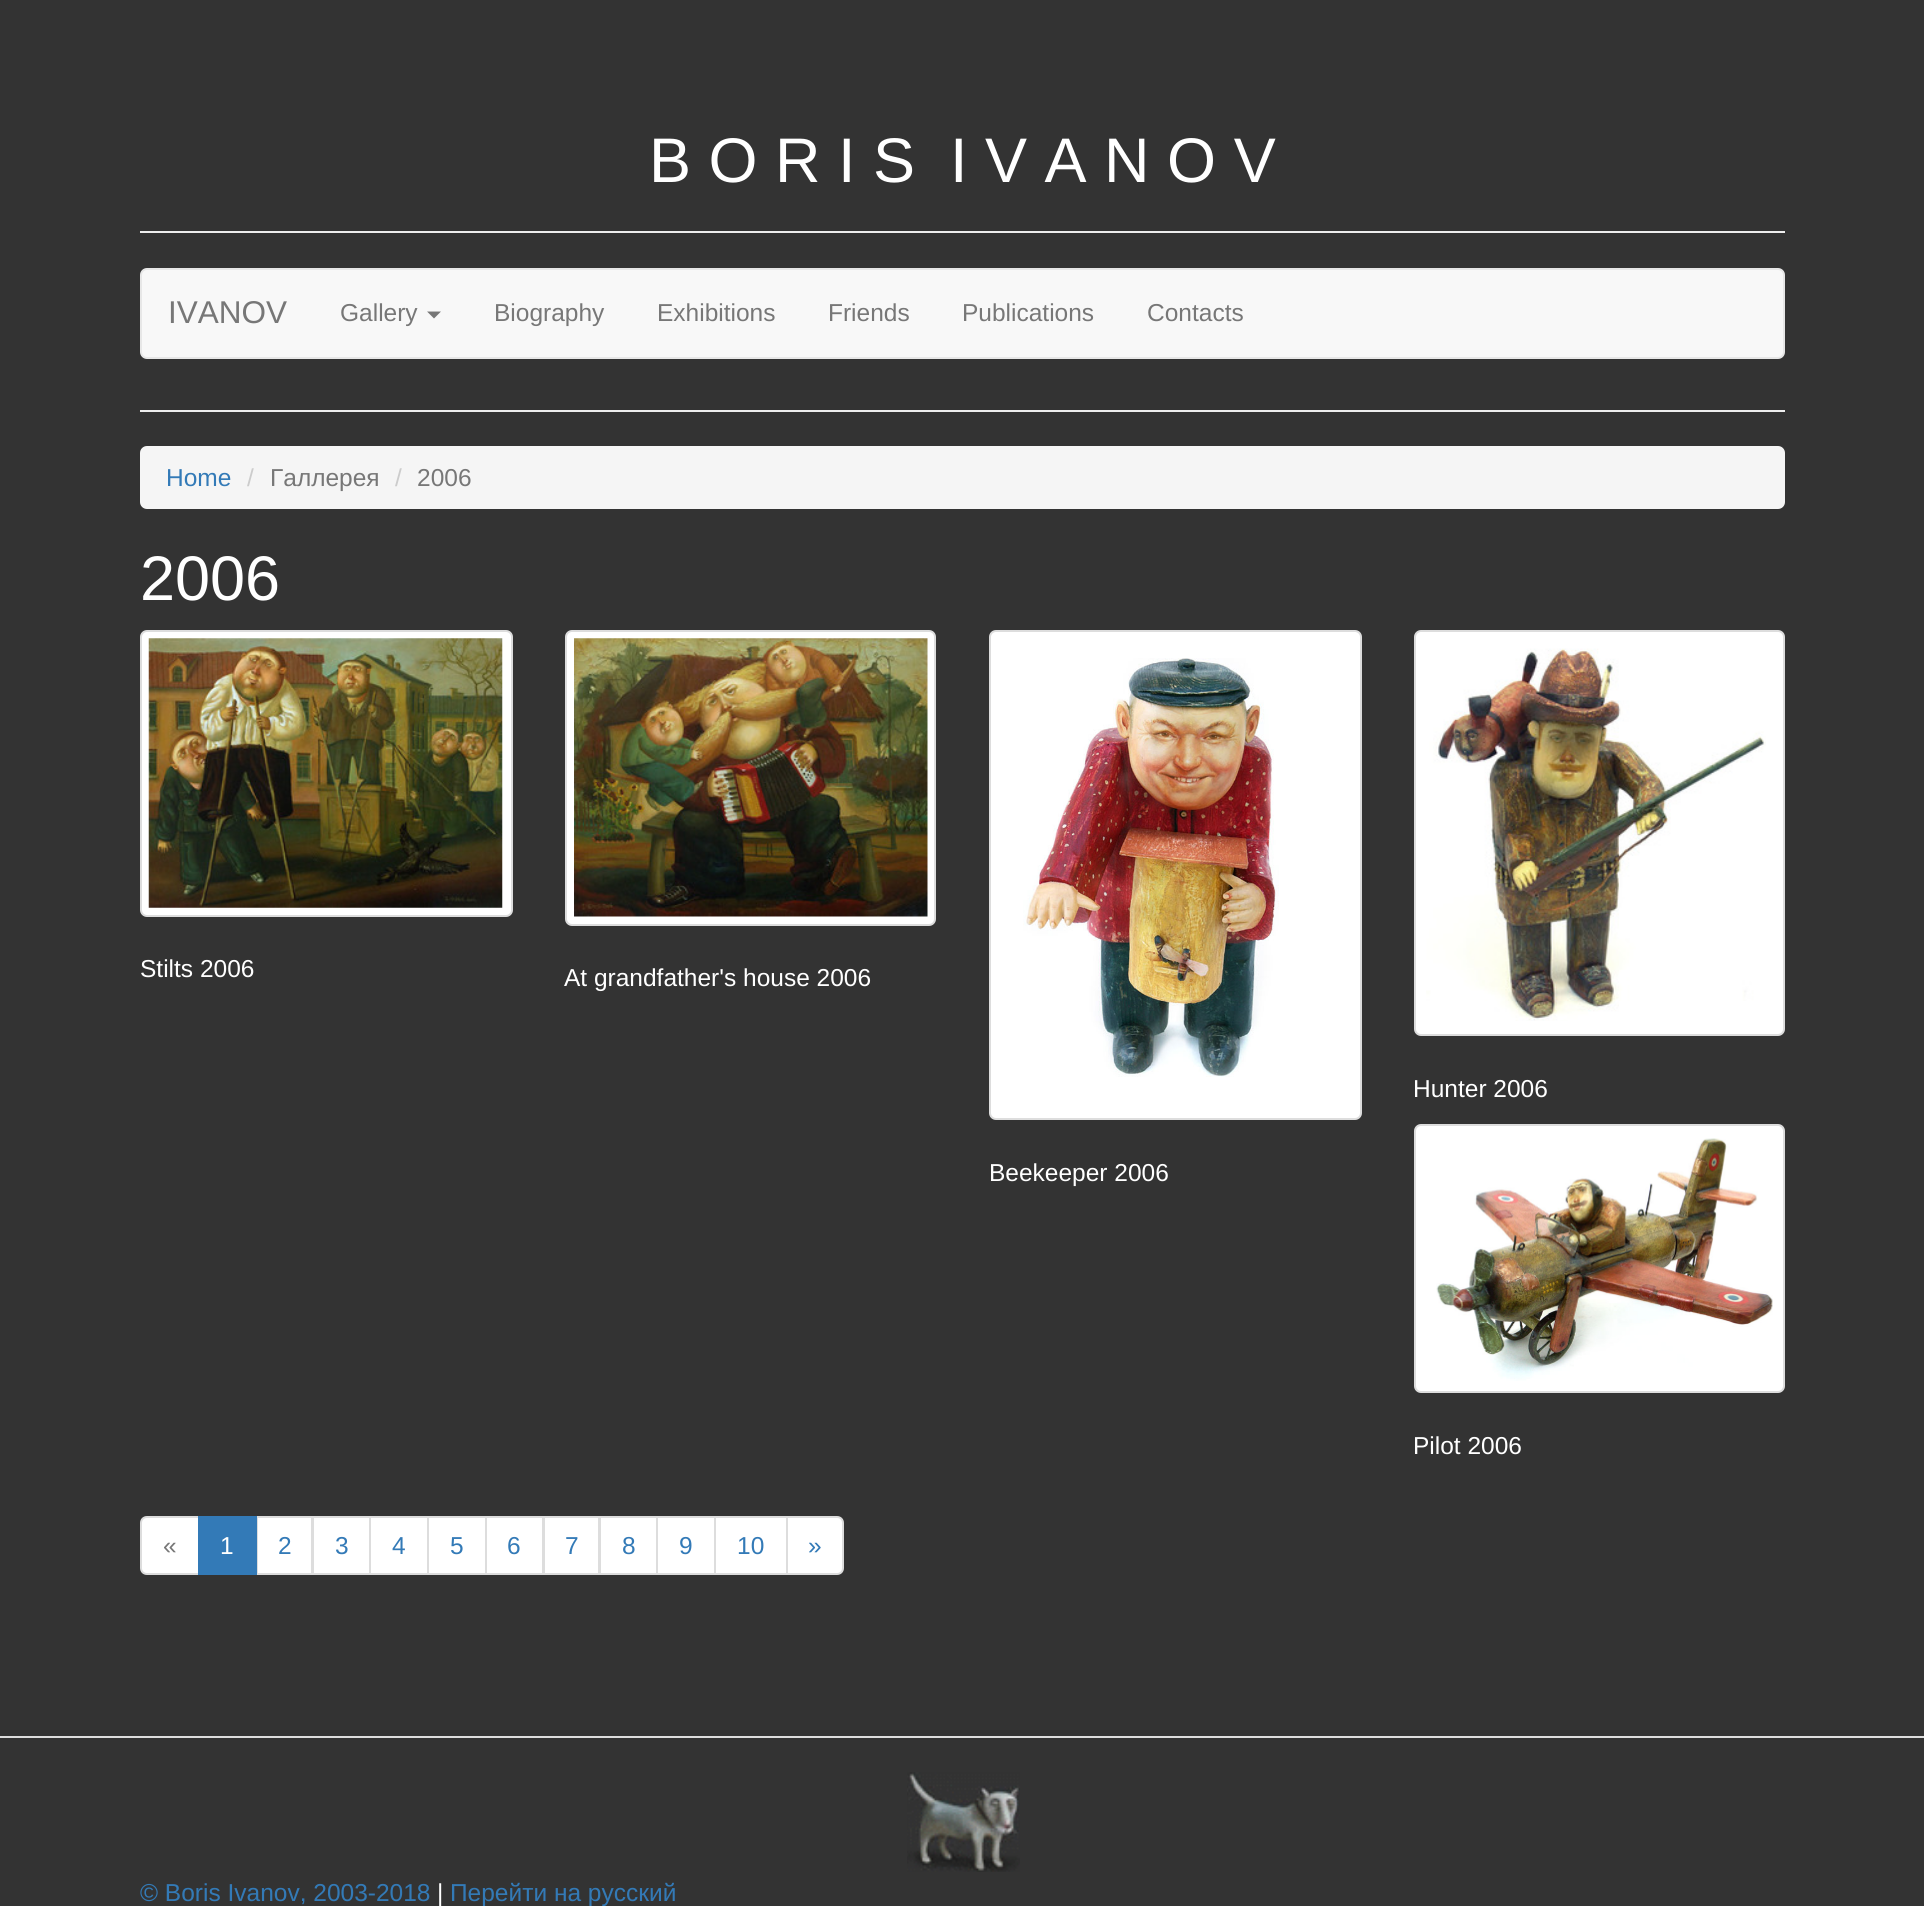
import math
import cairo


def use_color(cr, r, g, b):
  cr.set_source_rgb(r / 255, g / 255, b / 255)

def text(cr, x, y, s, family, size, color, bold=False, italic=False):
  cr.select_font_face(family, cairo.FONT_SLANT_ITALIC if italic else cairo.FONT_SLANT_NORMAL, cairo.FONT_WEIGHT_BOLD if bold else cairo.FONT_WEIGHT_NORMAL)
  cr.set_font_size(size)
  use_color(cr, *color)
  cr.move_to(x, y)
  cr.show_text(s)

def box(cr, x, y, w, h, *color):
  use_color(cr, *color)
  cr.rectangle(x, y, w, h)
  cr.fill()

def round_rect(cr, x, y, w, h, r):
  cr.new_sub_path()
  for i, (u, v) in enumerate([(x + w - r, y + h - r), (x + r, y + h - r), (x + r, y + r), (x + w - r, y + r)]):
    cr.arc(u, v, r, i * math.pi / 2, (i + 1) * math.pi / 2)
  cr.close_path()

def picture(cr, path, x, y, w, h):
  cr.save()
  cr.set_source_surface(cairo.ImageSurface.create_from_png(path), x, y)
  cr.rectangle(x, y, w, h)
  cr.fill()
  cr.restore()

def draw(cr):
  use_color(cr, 51, 51, 51)
  cr.paint()
  box(cr, 140, 410, 1645, 2, 238, 238, 238)
  box(cr, 140, 231, 1645, 2, 238, 238, 238)
  use_color(cr, 248, 248, 248)
  round_rect(cr, 141, 269, 1643, 89, 6)
  cr.fill_preserve()
  use_color(cr, 231, 231, 231)
  cr.stroke()
  use_color(cr, 119, 119, 119)
  cr.new_path()
  cr.move_to(427, 311.5)
  cr.line_to(441, 311.5)
  cr.line_to(434, 318.5)
  cr.close_path()
  cr.fill()
  use_color(cr, 245, 245, 245)
  round_rect(cr, 140, 446, 1645, 63, 7)
  cr.fill()
  use_color(cr, 255, 255, 255)
  round_rect(cr, 141, 631, 371, 285, 6)
  cr.fill_preserve()
  use_color(cr, 221, 221, 221)
  cr.stroke()
  picture(cr, "img_01.png", 148, 638, 355, 270)
  use_color(cr, 255, 255, 255)
  round_rect(cr, 566, 631, 369, 294, 6)
  cr.fill_preserve()
  use_color(cr, 221, 221, 221)
  cr.stroke()
  picture(cr, "img_02.png", 574, 638, 354, 279)
  use_color(cr, 255, 255, 255)
  round_rect(cr, 1415, 631, 369, 404, 6)
  cr.fill_preserve()
  use_color(cr, 221, 221, 221)
  cr.stroke()
  picture(cr, "img_03.png", 1426, 648, 340, 373)
  use_color(cr, 255, 255, 255)
  round_rect(cr, 990, 631, 371, 488, 6)
  cr.fill_preserve()
  use_color(cr, 221, 221, 221)
  cr.stroke()
  picture(cr, "img_04.png", 1023, 658, 256, 419)
  use_color(cr, 255, 255, 255)
  round_rect(cr, 1415, 1125, 369, 267, 6)
  cr.fill_preserve()
  use_color(cr, 221, 221, 221)
  cr.stroke()
  picture(cr, "img_05.png", 1436, 1138, 337, 243)
  use_color(cr, 255, 255, 255)
  cr.new_path()
  cr.move_to(147, 1517)
  cr.line_to(199, 1517)
  cr.line_to(199, 1574)
  cr.line_to(147, 1574)
  cr.curve_to(143.5, 1574, 141, 1571.5, 141, 1568)
  cr.line_to(141, 1523)
  cr.curve_to(141, 1519.5, 143.5, 1517, 147, 1517)
  cr.close_path()
  cr.fill_preserve()
  use_color(cr, 221, 221, 221)
  cr.stroke()
  use_color(cr, 255, 255, 255)
  cr.rectangle(257, 1517, 55, 57)
  cr.fill_preserve()
  use_color(cr, 221, 221, 221)
  cr.stroke()
  box(cr, 198, 1516, 59, 59, 51, 122, 183)
  use_color(cr, 255, 255, 255)
  cr.rectangle(313, 1517, 57, 57)
  cr.fill_preserve()
  use_color(cr, 221, 221, 221)
  cr.stroke()
  use_color(cr, 255, 255, 255)
  cr.rectangle(370, 1517, 58, 57)
  cr.fill_preserve()
  use_color(cr, 221, 221, 221)
  cr.stroke()
  use_color(cr, 255, 255, 255)
  cr.rectangle(428, 1517, 58, 57)
  cr.fill_preserve()
  use_color(cr, 221, 221, 221)
  cr.stroke()
  use_color(cr, 255, 255, 255)
  cr.rectangle(486, 1517, 57, 57)
  cr.fill_preserve()
  use_color(cr, 221, 221, 221)
  cr.stroke()
  use_color(cr, 255, 255, 255)
  cr.rectangle(544, 1517, 55, 57)
  cr.fill_preserve()
  use_color(cr, 221, 221, 221)
  cr.stroke()
  use_color(cr, 255, 255, 255)
  cr.rectangle(600, 1517, 57, 57)
  cr.fill_preserve()
  use_color(cr, 221, 221, 221)
  cr.stroke()
  use_color(cr, 255, 255, 255)
  cr.rectangle(657, 1517, 58, 57)
  cr.fill_preserve()
  use_color(cr, 221, 221, 221)
  cr.stroke()
  use_color(cr, 255, 255, 255)
  cr.rectangle(715, 1517, 72, 57)
  cr.fill_preserve()
  use_color(cr, 221, 221, 221)
  cr.stroke()
  use_color(cr, 255, 255, 255)
  cr.new_path()
  cr.move_to(787, 1517)
  cr.line_to(837, 1517)
  cr.curve_to(840.5, 1517, 843, 1519.5, 843, 1523)
  cr.line_to(843, 1568)
  cr.curve_to(843, 1571.5, 840.5, 1574, 837, 1574)
  cr.line_to(787, 1574)
  cr.close_path()
  cr.fill_preserve()
  use_color(cr, 221, 221, 221)
  cr.stroke()
  box(cr, 0, 1736, 1924, 2, 221, 221, 221)
  picture(cr, "img_06.png", 907, 1772, 113, 100)
  text(cr, 649, 182, "B O R I S  I V A N O V", "Liberation Sans", 63, (255, 255, 255))
  text(cr, 168, 323, "IVANOV", "Liberation Sans", 31.5, (119, 119, 119))
  text(cr, 340, 321, "Gallery", "Liberation Sans", 24.5, (119, 119, 119))
  text(cr, 494, 321, "Biography", "Liberation Sans", 24.5, (119, 119, 119))
  text(cr, 657, 321, "Exhibitions", "Liberation Sans", 24.5, (119, 119, 119))
  text(cr, 828, 321, "Friends", "Liberation Sans", 24.5, (119, 119, 119))
  text(cr, 962, 321, "Publications", "Liberation Sans", 24.5, (119, 119, 119))
  text(cr, 1147, 321, "Contacts", "Liberation Sans", 24.5, (119, 119, 119))
  text(cr, 166, 486, "Home", "Liberation Sans", 24.5, (51, 122, 183))
  text(cr, 247, 486, "/", "Liberation Sans", 24.5, (204, 204, 204))
  text(cr, 270, 486, "Галлерея", "Liberation Sans", 24.5, (119, 119, 119))
  text(cr, 395, 486, "/", "Liberation Sans", 24.5, (204, 204, 204))
  text(cr, 417, 486, "2006", "Liberation Sans", 24.5, (119, 119, 119))
  text(cr, 140, 600, "2006", "Liberation Sans", 63, (255, 255, 255))
  text(cr, 140, 977, "Stilts 2006", "Liberation Sans", 24.5, (255, 255, 255))
  text(cr, 564, 986, "At grandfather's house 2006", "Liberation Sans", 24.5, (255, 255, 255))
  text(cr, 1413, 1097, "Hunter 2006", "Liberation Sans", 24.5, (255, 255, 255))
  text(cr, 989, 1181, "Beekeeper 2006", "Liberation Sans", 24.5, (255, 255, 255))
  text(cr, 1413, 1454, "Pilot 2006", "Liberation Sans", 24.5, (255, 255, 255))
  text(cr, 163, 1554, "«", "Liberation Sans", 24.5, (119, 119, 119))
  text(cr, 220, 1554, "1", "Liberation Sans", 24.5, (255, 255, 255))
  text(cr, 278, 1554, "2", "Liberation Sans", 24.5, (51, 122, 183))
  text(cr, 335, 1554, "3", "Liberation Sans", 24.5, (51, 122, 183))
  text(cr, 392, 1554, "4", "Liberation Sans", 24.5, (51, 122, 183))
  text(cr, 450, 1554, "5", "Liberation Sans", 24.5, (51, 122, 183))
  text(cr, 507, 1554, "6", "Liberation Sans", 24.5, (51, 122, 183))
  text(cr, 565, 1554, "7", "Liberation Sans", 24.5, (51, 122, 183))
  text(cr, 622, 1554, "8", "Liberation Sans", 24.5, (51, 122, 183))
  text(cr, 679, 1554, "9", "Liberation Sans", 24.5, (51, 122, 183))
  text(cr, 737, 1554, "10", "Liberation Sans", 24.5, (51, 122, 183))
  text(cr, 808, 1554, "»", "Liberation Sans", 24.5, (51, 122, 183))
  text(cr, 140, 1901, "© Boris Ivanov, 2003-2018", "Liberation Sans", 24.5, (51, 122, 183))
  text(cr, 437, 1901, "|", "Liberation Sans", 24.5, (255, 255, 255))
  text(cr, 450, 1901, "Перейти на русский", "Liberation Sans", 24.5, (51, 122, 183))


surface = cairo.ImageSurface(cairo.FORMAT_RGB24, 1924, 1906)
cr = cairo.Context(surface)
options = cairo.FontOptions()
options.set_hint_metrics(cairo.HINT_METRICS_OFF)
options.set_hint_style(cairo.HINT_STYLE_NONE)
cr.set_font_options(options)
cr.set_miter_limit(4)
draw(cr)
surface.write_to_png("out.png")
